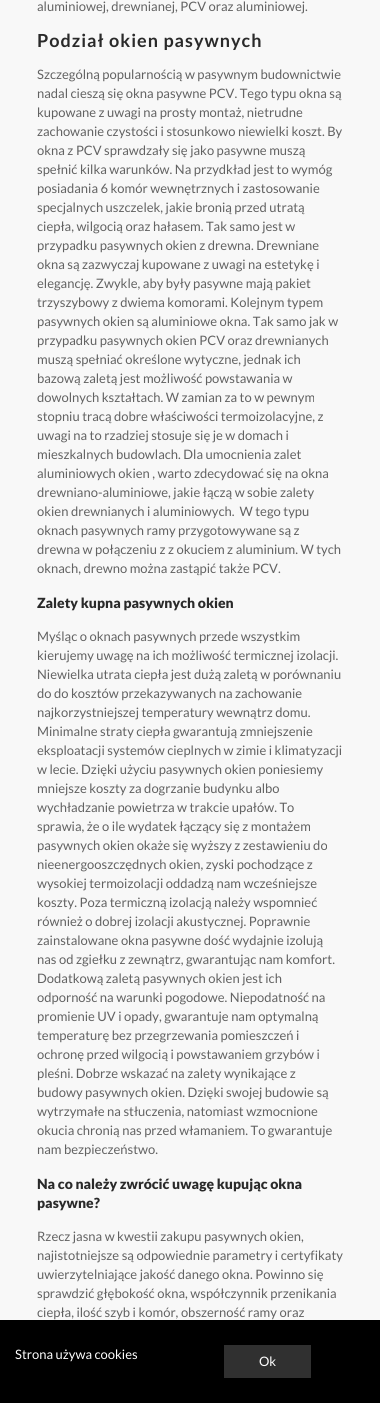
import math
import cairo


def use_color(cr, r, g, b):
  cr.set_source_rgb(r / 255, g / 255, b / 255)

def text(cr, x, y, s, family, size, color, bold=False, italic=False):
  cr.select_font_face(family, cairo.FONT_SLANT_ITALIC if italic else cairo.FONT_SLANT_NORMAL, cairo.FONT_WEIGHT_BOLD if bold else cairo.FONT_WEIGHT_NORMAL)
  cr.set_font_size(size)
  use_color(cr, *color)
  cr.move_to(x, y)
  cr.show_text(s)

def spaced_text(cr, x, y, s, letter, word):
  cr.move_to(x, y)
  for ch in s:
    cr.show_text(ch)
    cr.rel_move_to(letter + word * (ch == ' '), 0)

def box(cr, x, y, w, h, *color):
  use_color(cr, *color)
  cr.rectangle(x, y, w, h)
  cr.fill()

def draw(cr):
  use_color(cr, 248, 248, 248)
  cr.paint()
  box(cr, 0, 1320, 380, 83, 0, 0, 0)
  box(cr, 224, 1345, 87, 33, 48, 48, 48)
  text(cr, 37, 11, "aluminiowej, drewnianej, PCV oraz aluminiowej.", "Lato", 13, (98, 98, 98))
  cr.select_font_face("Lato", cairo.FONT_SLANT_NORMAL, cairo.FONT_WEIGHT_BOLD)
  cr.set_font_size(18)
  use_color(cr, 42, 42, 42)
  spaced_text(cr, 37, 47, "Podział okien pasywnych", 1, 0)
  text(cr, 37, 79, "Szczególną popularnością w pasywnym budownictwie", "Lato", 13, (98, 98, 98))
  text(cr, 37, 98, "nadal cieszą się okna pasywne PCV. Tego typu okna są", "Lato", 13, (98, 98, 98))
  text(cr, 37, 117, "kupowane z uwagi na prosty montaż, nietrudne", "Lato", 13, (98, 98, 98))
  text(cr, 37, 136, "zachowanie czystości i stosunkowo niewielki koszt. By", "Lato", 13, (98, 98, 98))
  text(cr, 37, 155, "okna z PCV sprawdzały się jako pasywne muszą", "Lato", 13, (98, 98, 98))
  text(cr, 37, 174, "spełnić kilka warunków. Na przydkład jest to wymóg", "Lato", 13, (98, 98, 98))
  text(cr, 37, 193, "posiadania 6 komór wewnętrznych i zastosowanie", "Lato", 13, (98, 98, 98))
  text(cr, 37, 212, "specjalnych uszczelek, jakie bronią przed utratą", "Lato", 13, (98, 98, 98))
  text(cr, 37, 231, "ciepła, wilgocią oraz hałasem. Tak samo jest w", "Lato", 13, (98, 98, 98))
  text(cr, 37, 250, "przypadku pasywnych okien z drewna. Drewniane", "Lato", 13, (98, 98, 98))
  text(cr, 37, 269, "okna są zazwyczaj kupowane z uwagi na estetykę i", "Lato", 13, (98, 98, 98))
  text(cr, 37, 288, "elegancję. Zwykle, aby były pasywne mają pakiet", "Lato", 13, (98, 98, 98))
  text(cr, 37, 307, "trzyszybowy z dwiema komorami. Kolejnym typem", "Lato", 13, (98, 98, 98))
  text(cr, 37, 326, "pasywnych okien są aluminiowe okna. Tak samo jak w", "Lato", 13, (98, 98, 98))
  text(cr, 37, 345, "przypadku pasywnych okien PCV oraz drewnianych", "Lato", 13, (98, 98, 98))
  text(cr, 37, 364, "muszą spełniać określone wytyczne, jednak ich", "Lato", 13, (98, 98, 98))
  text(cr, 37, 383, "bazową zaletą jest możliwość powstawania w", "Lato", 13, (98, 98, 98))
  text(cr, 37, 402, "dowolnych kształtach. W zamian za to w pewnym", "Lato", 13, (98, 98, 98))
  text(cr, 37, 421, "stopniu tracą dobre właściwości termoizolacyjne, z", "Lato", 13, (98, 98, 98))
  text(cr, 37, 440, "uwagi na to rzadziej stosuje się je w domach i", "Lato", 13, (98, 98, 98))
  text(cr, 37, 459, "mieszkalnych budowlach. Dla umocnienia zalet", "Lato", 13, (98, 98, 98))
  text(cr, 37, 478, "aluminiowych okien , warto zdecydować się na okna", "Lato", 13, (98, 98, 98))
  text(cr, 37, 497, "drewniano-aluminiowe, jakie łączą w sobie zalety", "Lato", 13, (98, 98, 98))
  text(cr, 37, 516, "okien drewnianych i aluminiowych.  W tego typu", "Lato", 13, (98, 98, 98))
  text(cr, 37, 535, "oknach pasywnych ramy przygotowywane są z", "Lato", 13, (98, 98, 98))
  text(cr, 37, 554, "drewna w połączeniu z z okuciem z aluminium. W tych", "Lato", 13, (98, 98, 98))
  text(cr, 37, 573, "oknach, drewno można zastąpić także PCV.", "Lato", 13, (98, 98, 98))
  text(cr, 37, 608, "Zalety kupna pasywnych okien", "Lato Black", 14, (42, 42, 42))
  text(cr, 37, 641, "Myśląc o oknach pasywnych przede wszystkim", "Lato", 13, (98, 98, 98))
  text(cr, 37, 660, "kierujemy uwagę na ich możliwość termicznej izolacji.", "Lato", 13, (98, 98, 98))
  text(cr, 37, 679, "Niewielka utrata ciepła jest dużą zaletą w porównaniu", "Lato", 13, (98, 98, 98))
  text(cr, 37, 698, "do do kosztów przekazywanych na zachowanie", "Lato", 13, (98, 98, 98))
  text(cr, 37, 717, "najkorzystniejszej temperatury wewnątrz domu.", "Lato", 13, (98, 98, 98))
  text(cr, 37, 736, "Minimalne straty ciepła gwarantują zmniejszenie", "Lato", 13, (98, 98, 98))
  text(cr, 37, 755, "eksploatacji systemów cieplnych w zimie i klimatyzacji", "Lato", 13, (98, 98, 98))
  text(cr, 37, 774, "w lecie. Dzięki użyciu pasywnych okien poniesiemy", "Lato", 13, (98, 98, 98))
  text(cr, 37, 793, "mniejsze koszty za dogrzanie budynku albo", "Lato", 13, (98, 98, 98))
  text(cr, 37, 812, "wychładzanie powietrza w trakcie upałów. To", "Lato", 13, (98, 98, 98))
  text(cr, 37, 831, "sprawia, że o ile wydatek łączący się z montażem", "Lato", 13, (98, 98, 98))
  text(cr, 37, 850, "pasywnych okien okaże się wyższy z zestawieniu do", "Lato", 13, (98, 98, 98))
  text(cr, 37, 869, "nieenergooszczędnych okien, zyski pochodzące z", "Lato", 13, (98, 98, 98))
  text(cr, 37, 888, "wysokiej termoizolacji oddadzą nam wcześniejsze", "Lato", 13, (98, 98, 98))
  text(cr, 37, 907, "koszty. Poza termiczną izolacją należy wspomnieć", "Lato", 13, (98, 98, 98))
  text(cr, 37, 926, "również o dobrej izolacji akustycznej. Poprawnie", "Lato", 13, (98, 98, 98))
  text(cr, 37, 945, "zainstalowane okna pasywne dość wydajnie izolują", "Lato", 13, (98, 98, 98))
  text(cr, 37, 964, "nas od zgiełku z zewnątrz, gwarantując nam komfort.", "Lato", 13, (98, 98, 98))
  text(cr, 37, 983, "Dodatkową zaletą pasywnych okien jest ich", "Lato", 13, (98, 98, 98))
  text(cr, 37, 1002, "odporność na warunki pogodowe. Niepodatność na", "Lato", 13, (98, 98, 98))
  text(cr, 37, 1021, "promienie UV i opady, gwarantuje nam optymalną", "Lato", 13, (98, 98, 98))
  text(cr, 37, 1040, "temperaturę bez przegrzewania pomieszczeń i", "Lato", 13, (98, 98, 98))
  text(cr, 37, 1059, "ochronę przed wilgocią i powstawaniem grzybów i", "Lato", 13, (98, 98, 98))
  text(cr, 37, 1078, "pleśni. Dobrze wskazać na zalety wynikające z", "Lato", 13, (98, 98, 98))
  text(cr, 37, 1097, "budowy pasywnych okien. Dzięki swojej budowie są", "Lato", 13, (98, 98, 98))
  text(cr, 37, 1116, "wytrzymałe na stłuczenia, natomiast wzmocnione", "Lato", 13, (98, 98, 98))
  text(cr, 37, 1135, "okucia chronią nas przed włamaniem. To gwarantuje", "Lato", 13, (98, 98, 98))
  text(cr, 37, 1154, "nam bezpieczeństwo.", "Lato", 13, (98, 98, 98))
  text(cr, 37, 1189, "Na co należy zwrócić uwagę kupując okna", "Lato Black", 14, (42, 42, 42))
  text(cr, 37, 1208, "pasywne?", "Lato Black", 14, (42, 42, 42))
  text(cr, 37, 1241, "Rzecz jasna w kwestii zakupu pasywnych okien,", "Lato", 13, (98, 98, 98))
  text(cr, 37, 1260, "najistotniejsze są odpowiednie parametry i certyfikaty", "Lato", 13, (98, 98, 98))
  text(cr, 37, 1279, "uwierzytelniające jakość danego okna. Powinno się", "Lato", 13, (98, 98, 98))
  text(cr, 37, 1298, "sprawdzić głębokość okna, współczynnik przenikania", "Lato", 13, (98, 98, 98))
  text(cr, 37, 1317, "ciepła, ilość szyb i komór, obszerność ramy oraz", "Lato", 13, (98, 98, 98))
  text(cr, 15, 1359, "Strona używa cookies", "Lato", 13, (255, 255, 255))
  text(cr, 259, 1366, "Ok", "Lato", 13, (255, 255, 255))


surface = cairo.ImageSurface(cairo.FORMAT_RGB24, 380, 1403)
cr = cairo.Context(surface)
options = cairo.FontOptions()
options.set_hint_metrics(cairo.HINT_METRICS_OFF)
options.set_hint_style(cairo.HINT_STYLE_NONE)
cr.set_font_options(options)
cr.set_miter_limit(4)
draw(cr)
surface.write_to_png("out.png")
